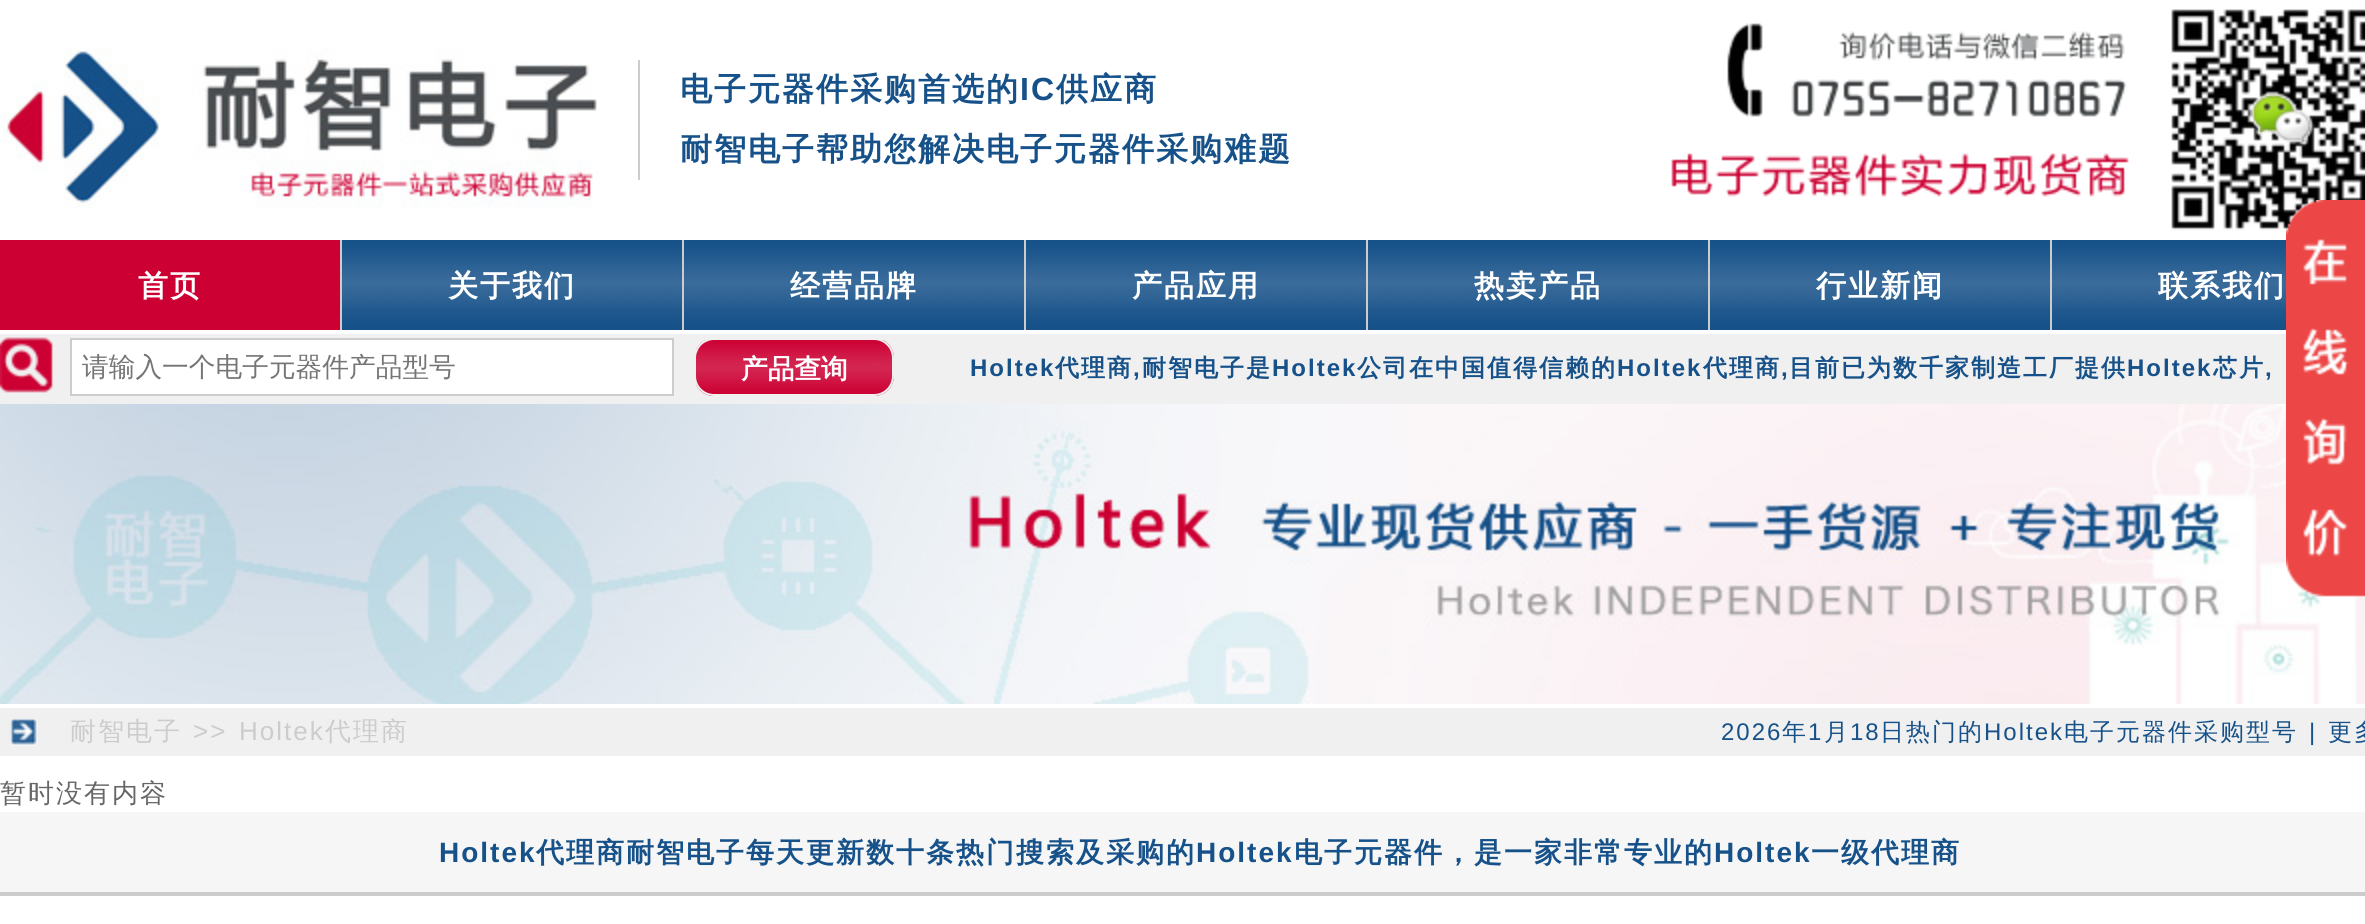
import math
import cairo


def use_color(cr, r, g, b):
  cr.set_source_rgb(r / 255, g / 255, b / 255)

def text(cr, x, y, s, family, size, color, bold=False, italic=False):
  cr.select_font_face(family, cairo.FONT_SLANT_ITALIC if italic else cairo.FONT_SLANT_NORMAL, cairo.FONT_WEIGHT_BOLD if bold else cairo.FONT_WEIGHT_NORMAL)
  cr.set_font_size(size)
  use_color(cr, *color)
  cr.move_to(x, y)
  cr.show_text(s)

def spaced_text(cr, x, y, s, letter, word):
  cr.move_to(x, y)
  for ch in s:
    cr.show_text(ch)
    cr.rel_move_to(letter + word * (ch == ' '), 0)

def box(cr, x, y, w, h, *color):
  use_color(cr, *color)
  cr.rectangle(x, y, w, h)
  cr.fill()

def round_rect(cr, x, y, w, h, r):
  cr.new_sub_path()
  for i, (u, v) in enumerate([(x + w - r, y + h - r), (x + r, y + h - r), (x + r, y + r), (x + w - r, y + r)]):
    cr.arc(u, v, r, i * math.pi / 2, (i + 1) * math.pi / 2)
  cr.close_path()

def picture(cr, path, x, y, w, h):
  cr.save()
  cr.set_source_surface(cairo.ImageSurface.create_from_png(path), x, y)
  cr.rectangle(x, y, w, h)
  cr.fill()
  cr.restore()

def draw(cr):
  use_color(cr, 255, 255, 255)
  cr.paint()
  picture(cr, "img_01.png", 2, 48, 595, 160)
  box(cr, 638, 60, 2, 120, 204, 204, 204)
  picture(cr, "img_02.png", 1671, 9, 694, 222)
  picture(cr, "img_03.png", 342, 240, 1944, 90)
  box(cr, 0, 240, 340, 90, 204, 0, 51)
  box(cr, 340, 240, 2, 90, 204, 204, 204)
  box(cr, 682, 240, 2, 90, 204, 204, 204)
  box(cr, 1024, 240, 2, 90, 204, 204, 204)
  box(cr, 1366, 240, 2, 90, 204, 204, 204)
  box(cr, 1708, 240, 2, 90, 204, 204, 204)
  box(cr, 2050, 240, 2, 90, 204, 204, 204)
  picture(cr, "img_07.png", 0, 404, 2365, 300)
  picture(cr, "img_04.png", 2286, 200, 79, 397)
  box(cr, 0, 334, 2286, 70, 240, 240, 240)
  picture(cr, "img_05.png", 0, 337, 53, 56)
  use_color(cr, 255, 255, 255)
  cr.rectangle(71, 339, 602, 56)
  cr.fill_preserve()
  use_color(cr, 204, 204, 204)
  cr.stroke()
  picture(cr, "img_06.png", 696, 340, 198, 56)
  round_rect(cr, 695, 339, 198, 56, 19)
  use_color(cr, 240, 240, 240)
  cr.stroke()
  box(cr, 0, 708, 2365, 48, 240, 240, 240)
  picture(cr, "img_08.png", 9, 718, 29, 28)
  box(cr, 0, 812, 2365, 80, 246, 246, 246)
  box(cr, 0, 892, 2365, 4, 204, 204, 204)
  cr.select_font_face("WenQuanYi Zen Hei", cairo.FONT_SLANT_NORMAL, cairo.FONT_WEIGHT_BOLD)
  cr.set_font_size(32)
  use_color(cr, 22, 81, 137)
  spaced_text(cr, 680, 100, "电子元器件采购首选的", 2, 0)
  cr.select_font_face("Liberation Sans", cairo.FONT_SLANT_NORMAL, cairo.FONT_WEIGHT_BOLD)
  spaced_text(cr, 1020, 100, "IC", 2, 0)
  cr.select_font_face("WenQuanYi Zen Hei", cairo.FONT_SLANT_NORMAL, cairo.FONT_WEIGHT_BOLD)
  spaced_text(cr, 1056, 100, "供应商", 2, 0)
  spaced_text(cr, 680, 160, "耐智电子帮助您解决电子元器件采购难题", 2, 0)
  cr.set_font_size(30)
  use_color(cr, 255, 255, 255)
  spaced_text(cr, 138, 296, "首页", 2, 0)
  spaced_text(cr, 448, 296, "关于我们", 2, 0)
  spaced_text(cr, 790, 296, "经营品牌", 2, 0)
  spaced_text(cr, 1132, 296, "产品应用", 2, 0)
  spaced_text(cr, 1474, 296, "热卖产品", 2, 0)
  spaced_text(cr, 1816, 296, "行业新闻", 2, 0)
  spaced_text(cr, 2158, 296, "联系我们", 2, 0)
  text(cr, 82, 376, "请输入一个电子元器件产品型号", "WenQuanYi Zen Hei Medium", 26.7, (117, 117, 117))
  text(cr, 741, 378, "产品查询", "WenQuanYi Zen Hei", 26.7, (255, 255, 255), bold=True)
  cr.select_font_face("Liberation Sans", cairo.FONT_SLANT_NORMAL, cairo.FONT_WEIGHT_BOLD)
  cr.set_font_size(24)
  use_color(cr, 22, 81, 137)
  spaced_text(cr, 970, 376, "Holtek", 2, 0)
  cr.select_font_face("WenQuanYi Zen Hei", cairo.FONT_SLANT_NORMAL, cairo.FONT_WEIGHT_BOLD)
  spaced_text(cr, 1055, 376, "代理商", 2, 0)
  cr.select_font_face("Liberation Sans", cairo.FONT_SLANT_NORMAL, cairo.FONT_WEIGHT_BOLD)
  spaced_text(cr, 1133, 376, ",", 2, 0)
  cr.select_font_face("WenQuanYi Zen Hei", cairo.FONT_SLANT_NORMAL, cairo.FONT_WEIGHT_BOLD)
  spaced_text(cr, 1142, 376, "耐智电子是", 2, 0)
  cr.select_font_face("Liberation Sans", cairo.FONT_SLANT_NORMAL, cairo.FONT_WEIGHT_BOLD)
  spaced_text(cr, 1272, 376, "Holtek", 2, 0)
  cr.select_font_face("WenQuanYi Zen Hei", cairo.FONT_SLANT_NORMAL, cairo.FONT_WEIGHT_BOLD)
  spaced_text(cr, 1357, 376, "公司在中国值得信赖的", 2, 0)
  cr.select_font_face("Liberation Sans", cairo.FONT_SLANT_NORMAL, cairo.FONT_WEIGHT_BOLD)
  spaced_text(cr, 1617, 376, "Holtek", 2, 0)
  cr.select_font_face("WenQuanYi Zen Hei", cairo.FONT_SLANT_NORMAL, cairo.FONT_WEIGHT_BOLD)
  spaced_text(cr, 1703, 376, "代理商", 2, 0)
  cr.select_font_face("Liberation Sans", cairo.FONT_SLANT_NORMAL, cairo.FONT_WEIGHT_BOLD)
  spaced_text(cr, 1781, 376, ",", 2, 0)
  cr.select_font_face("WenQuanYi Zen Hei", cairo.FONT_SLANT_NORMAL, cairo.FONT_WEIGHT_BOLD)
  spaced_text(cr, 1789, 376, "目前已为数千家制造工厂提供", 2, 0)
  cr.select_font_face("Liberation Sans", cairo.FONT_SLANT_NORMAL, cairo.FONT_WEIGHT_BOLD)
  spaced_text(cr, 2127, 376, "Holtek", 2, 0)
  cr.select_font_face("WenQuanYi Zen Hei", cairo.FONT_SLANT_NORMAL, cairo.FONT_WEIGHT_BOLD)
  spaced_text(cr, 2213, 376, "芯片", 2, 0)
  cr.select_font_face("Liberation Sans", cairo.FONT_SLANT_NORMAL, cairo.FONT_WEIGHT_BOLD)
  spaced_text(cr, 2265, 376, ",", 2, 0)
  cr.select_font_face("WenQuanYi Zen Hei Medium")
  cr.set_font_size(26)
  use_color(cr, 204, 204, 204)
  spaced_text(cr, 70, 740, "耐智电子", 2, 0)
  cr.select_font_face("Liberation Sans")
  spaced_text(cr, 193, 740, ">>", 2, 0)
  spaced_text(cr, 239, 740, "Holtek", 2, 0)
  cr.select_font_face("WenQuanYi Zen Hei Medium")
  spaced_text(cr, 325, 740, "代理商", 2, 0)
  cr.select_font_face("Liberation Sans")
  cr.set_font_size(24)
  use_color(cr, 22, 81, 137)
  spaced_text(cr, 1721, 740, "2026", 2, 0)
  cr.select_font_face("WenQuanYi Zen Hei Medium")
  spaced_text(cr, 1782, 740, "年", 2, 0)
  cr.select_font_face("Liberation Sans")
  spaced_text(cr, 1808, 740, "1", 2, 0)
  cr.select_font_face("WenQuanYi Zen Hei Medium")
  spaced_text(cr, 1824, 740, "月", 2, 0)
  cr.select_font_face("Liberation Sans")
  spaced_text(cr, 1850, 740, "18", 2, 0)
  cr.select_font_face("WenQuanYi Zen Hei Medium")
  spaced_text(cr, 1880, 740, "日热门的", 2, 0)
  cr.select_font_face("Liberation Sans")
  spaced_text(cr, 1984, 740, "Holtek", 2, 0)
  cr.select_font_face("WenQuanYi Zen Hei Medium")
  spaced_text(cr, 2064, 740, "电子元器件采购型号", 2, 0)
  cr.select_font_face("Liberation Sans")
  spaced_text(cr, 2309, 740, "|", 2, 0)
  cr.select_font_face("WenQuanYi Zen Hei Medium")
  spaced_text(cr, 2328, 740, "更多", 2, 0)
  cr.set_font_size(26)
  use_color(cr, 102, 102, 102)
  spaced_text(cr, 0, 802, "暂时没有内容", 2, 0)
  cr.select_font_face("Liberation Sans", cairo.FONT_SLANT_NORMAL, cairo.FONT_WEIGHT_BOLD)
  cr.set_font_size(28)
  use_color(cr, 22, 81, 137)
  spaced_text(cr, 439, 862, "Holtek", 2, 0)
  cr.select_font_face("WenQuanYi Zen Hei", cairo.FONT_SLANT_NORMAL, cairo.FONT_WEIGHT_BOLD)
  spaced_text(cr, 536, 862, "代理商耐智电子每天更新数十条热门搜索及采购的", 2, 0)
  cr.select_font_face("Liberation Sans", cairo.FONT_SLANT_NORMAL, cairo.FONT_WEIGHT_BOLD)
  spaced_text(cr, 1196, 862, "Holtek", 2, 0)
  cr.select_font_face("WenQuanYi Zen Hei", cairo.FONT_SLANT_NORMAL, cairo.FONT_WEIGHT_BOLD)
  spaced_text(cr, 1294, 862, "电子元器件，是一家非常专业的", 2, 0)
  cr.select_font_face("Liberation Sans", cairo.FONT_SLANT_NORMAL, cairo.FONT_WEIGHT_BOLD)
  spaced_text(cr, 1714, 862, "Holtek", 2, 0)
  cr.select_font_face("WenQuanYi Zen Hei", cairo.FONT_SLANT_NORMAL, cairo.FONT_WEIGHT_BOLD)
  spaced_text(cr, 1811, 862, "一级代理商", 2, 0)


surface = cairo.ImageSurface(cairo.FORMAT_RGB24, 2365, 924)
cr = cairo.Context(surface)
options = cairo.FontOptions()
options.set_hint_metrics(cairo.HINT_METRICS_OFF)
options.set_hint_style(cairo.HINT_STYLE_NONE)
cr.set_font_options(options)
cr.set_miter_limit(4)
draw(cr)
surface.write_to_png("out.png")
